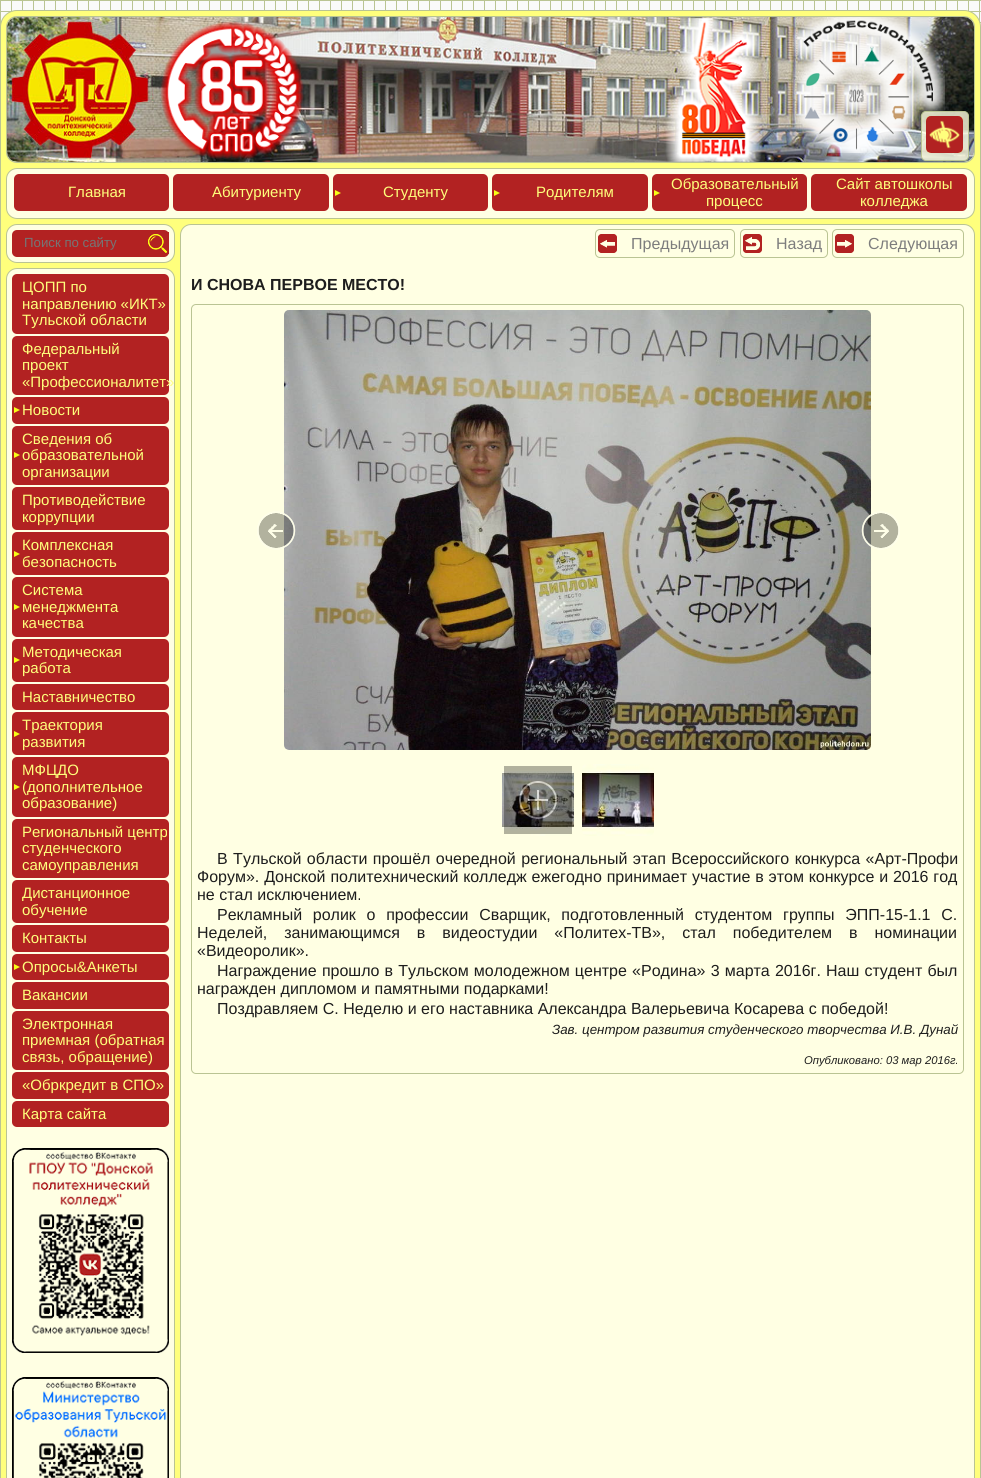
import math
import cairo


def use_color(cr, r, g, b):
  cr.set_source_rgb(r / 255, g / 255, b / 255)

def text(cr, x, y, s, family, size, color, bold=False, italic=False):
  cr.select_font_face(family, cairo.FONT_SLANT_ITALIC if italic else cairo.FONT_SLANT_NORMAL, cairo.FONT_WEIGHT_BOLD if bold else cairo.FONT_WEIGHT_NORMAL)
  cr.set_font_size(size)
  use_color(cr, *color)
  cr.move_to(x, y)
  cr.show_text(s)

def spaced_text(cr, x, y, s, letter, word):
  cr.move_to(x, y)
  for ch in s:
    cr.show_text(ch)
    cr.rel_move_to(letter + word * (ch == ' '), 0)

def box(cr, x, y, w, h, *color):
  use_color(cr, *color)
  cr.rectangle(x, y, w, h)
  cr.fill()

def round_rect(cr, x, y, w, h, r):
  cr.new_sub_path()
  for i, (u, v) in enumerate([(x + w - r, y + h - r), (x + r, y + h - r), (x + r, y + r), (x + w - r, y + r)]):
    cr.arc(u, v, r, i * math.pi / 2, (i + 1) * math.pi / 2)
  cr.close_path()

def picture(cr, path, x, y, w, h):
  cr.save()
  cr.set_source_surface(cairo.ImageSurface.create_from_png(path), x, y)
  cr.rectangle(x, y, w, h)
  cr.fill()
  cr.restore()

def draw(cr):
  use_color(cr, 255, 255, 255)
  cr.paint()
  picture(cr, "img_01.png", 0, 0, 981, 27)
  use_color(cr, 255, 255, 124)
  round_rect(cr, 0.5, 10.5, 980, 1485, 16.5)
  cr.fill_preserve()
  use_color(cr, 186, 196, 147)
  cr.set_line_width(1)
  cr.stroke()
  use_color(cr, 255, 255, 227)
  round_rect(cr, 6.5, 16.5, 968, 146, 10.5)
  cr.fill_preserve()
  use_color(cr, 186, 196, 147)
  cr.stroke()
  picture(cr, "img_02.png", 7, 17, 967, 145)
  picture(cr, "img_03.png", 160, 21, 144, 138)
  picture(cr, "img_04.png", 665, 18, 98, 144)
  picture(cr, "img_05.png", 792, 17, 153, 136)
  cr.set_source_rgba(1, 1, 0.882, 0.8)
  round_rect(cr, 921.5, 111.5, 47, 49, 4.5)
  cr.fill_preserve()
  use_color(cr, 186, 196, 147)
  cr.stroke()
  use_color(cr, 255, 255, 124)
  round_rect(cr, 926, 116, 37, 37, 5)
  cr.fill()
  picture(cr, "img_06.png", 926, 116, 37, 37)
  use_color(cr, 255, 255, 227)
  round_rect(cr, 6.5, 168.5, 968, 50, 10.5)
  cr.fill_preserve()
  use_color(cr, 186, 196, 147)
  cr.stroke()
  use_color(cr, 178, 34, 34)
  round_rect(cr, 14, 174, 155, 37, 5)
  cr.fill()
  round_rect(cr, 173, 174, 156, 37, 5)
  cr.fill()
  round_rect(cr, 333, 174, 155, 37, 5)
  cr.fill()
  picture(cr, "img_07.png", 335, 190, 6, 6)
  round_rect(cr, 492, 174, 156, 37, 5)
  cr.fill()
  picture(cr, "img_07.png", 494, 190, 6, 6)
  round_rect(cr, 652, 174, 155, 37, 5)
  cr.fill()
  picture(cr, "img_07.png", 654, 190, 6, 6)
  round_rect(cr, 811, 174, 156, 37, 5)
  cr.fill()
  use_color(cr, 255, 255, 227)
  round_rect(cr, 6.5, 224.5, 168, 38, 10.5)
  cr.fill_preserve()
  use_color(cr, 186, 196, 147)
  cr.stroke()
  use_color(cr, 178, 34, 34)
  round_rect(cr, 12, 230, 157, 27, 5)
  cr.fill()
  box(cr, 168, 232, 1, 22, 178, 34, 34)
  picture(cr, "img_08.png", 148, 234, 19, 19)
  use_color(cr, 255, 255, 227)
  round_rect(cr, 6.5, 268.5, 168, 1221, 10.5)
  cr.fill_preserve()
  use_color(cr, 186, 196, 147)
  cr.stroke()
  use_color(cr, 178, 34, 34)
  round_rect(cr, 12, 274, 157, 60, 5)
  cr.fill()
  round_rect(cr, 12, 336, 157, 59, 5)
  cr.fill()
  round_rect(cr, 12, 397, 157, 27, 5)
  cr.fill()
  picture(cr, "img_07.png", 14, 407, 6, 6)
  round_rect(cr, 12, 426, 157, 59, 5)
  cr.fill()
  picture(cr, "img_07.png", 14, 452, 6, 6)
  round_rect(cr, 12, 487, 157, 43, 5)
  cr.fill()
  round_rect(cr, 12, 532, 157, 43, 5)
  cr.fill()
  picture(cr, "img_07.png", 14, 551, 6, 6)
  round_rect(cr, 12, 577, 157, 60, 5)
  cr.fill()
  picture(cr, "img_07.png", 14, 604, 6, 6)
  round_rect(cr, 12, 639, 157, 43, 5)
  cr.fill()
  picture(cr, "img_07.png", 14, 657, 6, 6)
  round_rect(cr, 12, 684, 157, 26, 5)
  cr.fill()
  round_rect(cr, 12, 712, 157, 43, 5)
  cr.fill()
  picture(cr, "img_07.png", 14, 731, 6, 6)
  round_rect(cr, 12, 757, 157, 60, 5)
  cr.fill()
  picture(cr, "img_07.png", 14, 784, 6, 6)
  round_rect(cr, 12, 819, 157, 59, 5)
  cr.fill()
  round_rect(cr, 12, 880, 157, 43, 5)
  cr.fill()
  round_rect(cr, 12, 925, 157, 27, 5)
  cr.fill()
  round_rect(cr, 12, 954, 157, 26, 5)
  cr.fill()
  picture(cr, "img_07.png", 14, 964, 6, 6)
  round_rect(cr, 12, 982, 157, 27, 5)
  cr.fill()
  round_rect(cr, 12, 1011, 157, 59, 5)
  cr.fill()
  round_rect(cr, 12, 1072, 157, 27, 5)
  cr.fill()
  round_rect(cr, 12, 1101, 157, 26, 5)
  cr.fill()
  picture(cr, "img_09.png", 12, 1148, 157, 205)
  picture(cr, "img_10.png", 12, 1377, 157, 101)
  use_color(cr, 255, 255, 227)
  round_rect(cr, 180.5, 224.5, 794, 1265, 10.5)
  cr.fill_preserve()
  use_color(cr, 186, 196, 147)
  cr.stroke()
  picture(cr, "img_11.png", 598, 234, 19, 19)
  round_rect(cr, 595.5, 229.5, 139, 28, 4.5)
  cr.stroke()
  picture(cr, "img_12.png", 743, 234, 19, 19)
  round_rect(cr, 740.5, 229.5, 87, 28, 4.5)
  cr.stroke()
  picture(cr, "img_13.png", 835, 234, 19, 19)
  round_rect(cr, 832.5, 229.5, 131, 28, 4.5)
  cr.stroke()
  round_rect(cr, 191.5, 304.5, 772, 769, 4.5)
  cr.stroke()
  picture(cr, "img_15.png", 284, 310, 587, 440)
  picture(cr, "img_14.png", 257, 511, 39, 39)
  picture(cr, "img_16.png", 861, 511, 39, 39)
  picture(cr, "img_18.png", 502, 771, 72, 65)
  picture(cr, "img_17.png", 504, 766, 68, 68)
  picture(cr, "img_19.png", 582, 764, 72, 72)
  text(cr, 68, 197, "Главная", "Liberation Sans", 15, (255, 255, 124))
  text(cr, 212, 197, "Абитуриенту", "Liberation Sans", 15, (255, 255, 124))
  text(cr, 383, 197, "Студенту", "Liberation Sans", 15, (255, 255, 124))
  text(cr, 536, 197, "Родителям", "Liberation Sans", 15, (255, 255, 124))
  text(cr, 671, 189, "Образовательный", "Liberation Sans", 15, (255, 255, 124))
  text(cr, 706, 206, "процесс", "Liberation Sans", 15, (255, 255, 124))
  text(cr, 836, 189, "Сайт автошколы", "Liberation Sans", 15, (255, 255, 124))
  text(cr, 860, 206, "колледжа", "Liberation Sans", 15, (255, 255, 124))
  text(cr, 24, 247, "Поиск по сайту", "Liberation Sans", 13.25, (117, 117, 117))
  text(cr, 22, 292, "ЦОПП по", "Liberation Sans", 15, (255, 255, 124))
  text(cr, 22, 309, "направлению «ИКТ»", "Liberation Sans", 15, (255, 255, 124))
  text(cr, 22, 325, "Тульской области", "Liberation Sans", 15, (255, 255, 124))
  text(cr, 22, 354, "Федеральный", "Liberation Sans", 15, (255, 255, 124))
  text(cr, 22, 370, "проект", "Liberation Sans", 15, (255, 255, 124))
  text(cr, 22, 387, "«Профессионалитет»", "Liberation Sans", 15, (255, 255, 124))
  text(cr, 22, 415, "Новости", "Liberation Sans", 15, (255, 255, 124))
  text(cr, 22, 444, "Сведения об", "Liberation Sans", 15, (255, 255, 124))
  text(cr, 22, 460, "образовательной", "Liberation Sans", 15, (255, 255, 124))
  text(cr, 22, 477, "организации", "Liberation Sans", 15, (255, 255, 124))
  text(cr, 22, 505, "Противодействие", "Liberation Sans", 15, (255, 255, 124))
  text(cr, 22, 522, "коррупции", "Liberation Sans", 15, (255, 255, 124))
  text(cr, 22, 550, "Комплексная", "Liberation Sans", 15, (255, 255, 124))
  text(cr, 22, 567, "безопасность", "Liberation Sans", 15, (255, 255, 124))
  text(cr, 22, 595, "Система", "Liberation Sans", 15, (255, 255, 124))
  text(cr, 22, 612, "менеджмента", "Liberation Sans", 15, (255, 255, 124))
  text(cr, 22, 628, "качества", "Liberation Sans", 15, (255, 255, 124))
  text(cr, 22, 657, "Методическая", "Liberation Sans", 15, (255, 255, 124))
  text(cr, 22, 673, "работа", "Liberation Sans", 15, (255, 255, 124))
  text(cr, 22, 702, "Наставничество", "Liberation Sans", 15, (255, 255, 124))
  text(cr, 22, 730, "Траектория", "Liberation Sans", 15, (255, 255, 124))
  text(cr, 22, 747, "развития", "Liberation Sans", 15, (255, 255, 124))
  text(cr, 22, 775, "МФЦДО", "Liberation Sans", 15, (255, 255, 124))
  text(cr, 22, 792, "(дополнительное", "Liberation Sans", 15, (255, 255, 124))
  text(cr, 22, 808, "образование)", "Liberation Sans", 15, (255, 255, 124))
  text(cr, 22, 837, "Региональный центр", "Liberation Sans", 15, (255, 255, 124))
  text(cr, 22, 853, "студенческого", "Liberation Sans", 15, (255, 255, 124))
  text(cr, 22, 870, "самоуправления", "Liberation Sans", 15, (255, 255, 124))
  text(cr, 22, 898, "Дистанционное", "Liberation Sans", 15, (255, 255, 124))
  text(cr, 22, 915, "обучение", "Liberation Sans", 15, (255, 255, 124))
  text(cr, 22, 943, "Контакты", "Liberation Sans", 15, (255, 255, 124))
  text(cr, 22, 972, "Опросы&Анкеты", "Liberation Sans", 15, (255, 255, 124))
  text(cr, 22, 1000, "Вакансии", "Liberation Sans", 15, (255, 255, 124))
  text(cr, 22, 1029, "Электронная", "Liberation Sans", 15, (255, 255, 124))
  text(cr, 22, 1045, "приемная (обратная", "Liberation Sans", 15, (255, 255, 124))
  text(cr, 22, 1062, "связь, обращение)", "Liberation Sans", 15, (255, 255, 124))
  text(cr, 22, 1090, "«Обркредит в СПО»", "Liberation Sans", 15, (255, 255, 124))
  text(cr, 22, 1119, "Карта сайта", "Liberation Sans", 15, (255, 255, 124))
  text(cr, 631, 249, "Предыдущая", "Liberation Sans", 16, (125, 125, 125))
  text(cr, 776, 249, "Назад", "Liberation Sans", 16, (125, 125, 125))
  text(cr, 868, 249, "Следующая", "Liberation Sans", 16, (125, 125, 125))
  text(cr, 191, 290, "И СНОВА ПЕРВОЕ МЕСТО!", "Liberation Sans", 16, (29, 29, 29), bold=True)
  cr.select_font_face("Liberation Sans")
  spaced_text(cr, 217, 864, "В Тульской области прошёл очередной региональный этап Всероссийского конкурса «Арт-Профи", 0, 1)
  spaced_text(cr, 197, 882, "Форум». Донской политехнический колледж ежегодно принимает участие в этом конкурсе и 2016 год", 0, 0.4)
  text(cr, 197, 900, "не стал исключением.", "Liberation Sans", 16, (29, 29, 29))
  spaced_text(cr, 217, 920, "Рекламный ролик о профессии Сварщик, подготовленный студентом группы ЭПП-15-1.1 С.", 0, 6.25)
  spaced_text(cr, 197, 938, "Неделей, занимающимся в видеостудии «Политех-ТВ», стал победителем в номинации", 0, 12.5)
  text(cr, 197, 956, "«Видеоролик».", "Liberation Sans", 16, (29, 29, 29))
  spaced_text(cr, 217, 976, "Награждение прошло в Тульском молодежном центре «Родина» 3 марта 2016г. Наш студент был", 0, 0.75)
  text(cr, 197, 994, "награжден дипломом и памятными подарками!", "Liberation Sans", 16, (29, 29, 29))
  text(cr, 217, 1014, "Поздравляем С. Неделю и его наставника Александра Валерьевича Косарева с победой!", "Liberation Sans", 16, (29, 29, 29))
  text(cr, 552, 1034, "Зав. центром развития студенческого творчества И.В. Дунай", "Liberation Sans", 13.35, (29, 29, 29), italic=True)
  text(cr, 804, 1064, "Опубликовано: 03 мар 2016г.", "Liberation Sans", 11.25, (29, 29, 29), italic=True)


surface = cairo.ImageSurface(cairo.FORMAT_RGB24, 981, 1478)
cr = cairo.Context(surface)
options = cairo.FontOptions()
options.set_hint_metrics(cairo.HINT_METRICS_OFF)
options.set_hint_style(cairo.HINT_STYLE_NONE)
cr.set_font_options(options)
cr.set_miter_limit(4)
draw(cr)
surface.write_to_png("out.png")
